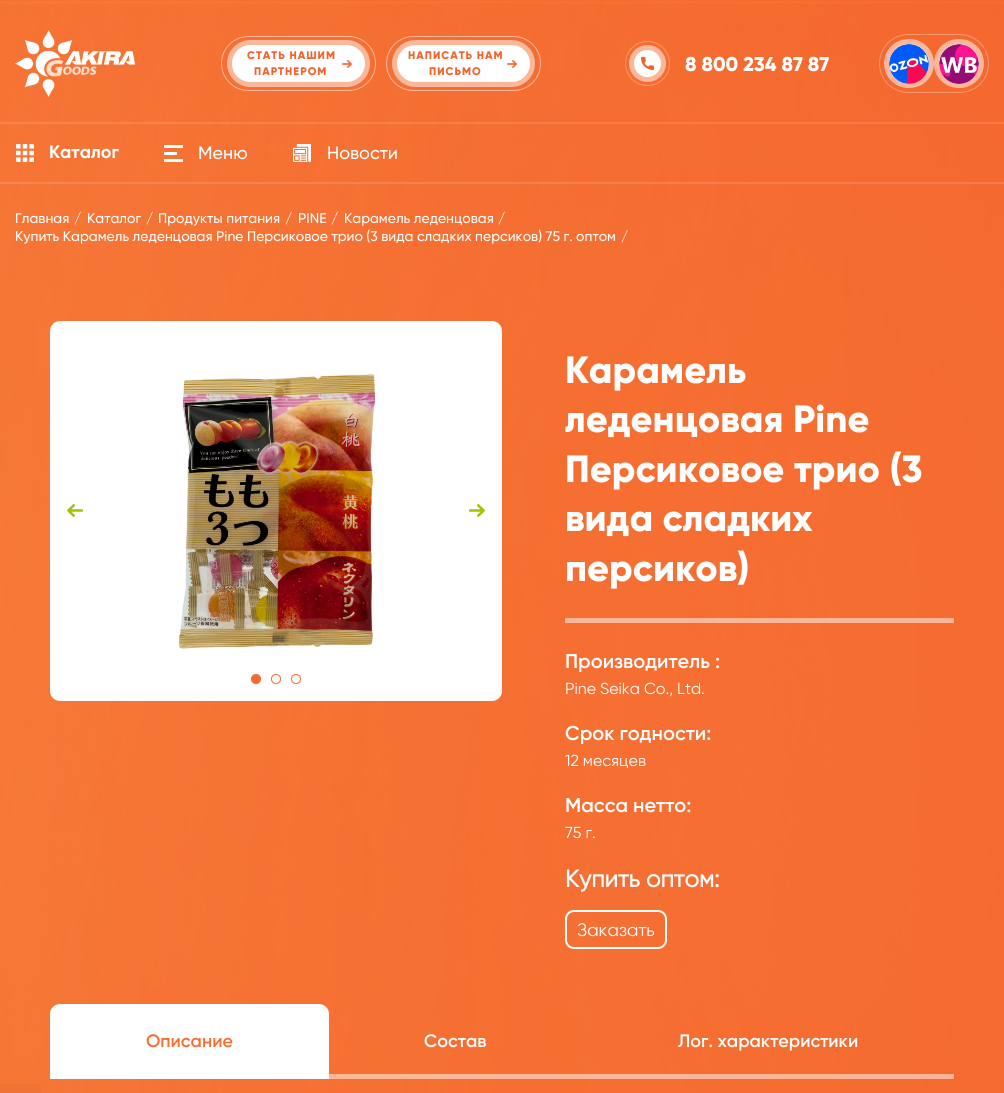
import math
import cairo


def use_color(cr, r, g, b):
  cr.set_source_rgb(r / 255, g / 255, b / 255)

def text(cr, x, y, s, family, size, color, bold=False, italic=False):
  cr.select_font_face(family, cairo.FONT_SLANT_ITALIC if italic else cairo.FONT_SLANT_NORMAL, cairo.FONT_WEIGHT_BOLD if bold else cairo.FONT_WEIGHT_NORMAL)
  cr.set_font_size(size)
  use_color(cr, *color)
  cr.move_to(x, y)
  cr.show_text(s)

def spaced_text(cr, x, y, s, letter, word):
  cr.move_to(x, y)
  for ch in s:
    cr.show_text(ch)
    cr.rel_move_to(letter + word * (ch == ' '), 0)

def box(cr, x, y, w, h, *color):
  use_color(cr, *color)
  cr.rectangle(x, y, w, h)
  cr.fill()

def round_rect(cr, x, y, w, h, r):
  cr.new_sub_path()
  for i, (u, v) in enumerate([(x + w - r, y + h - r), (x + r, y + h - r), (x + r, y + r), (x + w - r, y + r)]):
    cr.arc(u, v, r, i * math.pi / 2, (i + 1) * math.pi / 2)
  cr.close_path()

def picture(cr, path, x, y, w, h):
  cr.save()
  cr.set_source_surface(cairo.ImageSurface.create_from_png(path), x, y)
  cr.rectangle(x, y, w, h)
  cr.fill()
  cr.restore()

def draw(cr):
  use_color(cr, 240, 60, 23)
  cr.paint()
  picture(cr, "img_01.png", 0, 0, 1004, 1093)
  cr.set_source_rgba(1, 1, 1, 0.12)
  cr.rectangle(0, 182, 1004, 2)
  cr.fill()
  picture(cr, "img_02.png", 15, 30, 120, 67)
  round_rect(cr, 221.5, 36.5, 154, 54, 27)
  cr.set_source_rgba(1, 1, 1, 0.5)
  cr.set_line_width(1)
  cr.stroke()
  use_color(cr, 255, 255, 255)
  round_rect(cr, 229.5, 42.5, 138, 42, 21)
  cr.fill_preserve()
  use_color(cr, 250, 183, 154)
  cr.set_line_width(5)
  cr.stroke()
  picture(cr, "img_03.png", 342, 60, 10, 8)
  round_rect(cr, 386.5, 36.5, 154, 54, 27)
  cr.set_source_rgba(1, 1, 1, 0.5)
  cr.set_line_width(1)
  cr.stroke()
  use_color(cr, 255, 255, 255)
  round_rect(cr, 394.5, 42.5, 138, 42, 21)
  cr.fill_preserve()
  use_color(cr, 250, 183, 154)
  cr.set_line_width(5)
  cr.stroke()
  picture(cr, "img_03.png", 507, 60, 10, 8)
  cr.arc(647.5, 63.5, 22, 0, 2 * math.pi)
  cr.set_source_rgba(1, 1, 1, 0.3)
  cr.set_line_width(1)
  cr.stroke()
  use_color(cr, 255, 255, 255)
  cr.arc(647.5, 63.5, 16, 0, 2 * math.pi)
  cr.fill_preserve()
  use_color(cr, 250, 183, 154)
  cr.set_line_width(5)
  cr.stroke()
  picture(cr, "img_04.png", 641, 57, 13, 13)
  round_rect(cr, 879.5, 34.5, 109, 58, 29)
  use_color(cr, 248, 150, 110)
  cr.set_line_width(1)
  cr.stroke()
  use_color(cr, 255, 255, 255)
  round_rect(cr, 886.5, 41.5, 45, 44, 22)
  cr.fill_preserve()
  use_color(cr, 250, 183, 154)
  cr.set_line_width(5)
  cr.stroke()
  picture(cr, "img_05.png", 889, 44, 40, 40)
  use_color(cr, 255, 255, 255)
  round_rect(cr, 936.5, 41.5, 45, 44, 22)
  cr.fill_preserve()
  use_color(cr, 250, 183, 154)
  cr.stroke()
  picture(cr, "img_06.png", 939, 44, 40, 40)
  cr.set_source_rgba(1, 1, 1, 0.12)
  cr.rectangle(0, 122, 1004, 2)
  cr.fill()
  picture(cr, "img_07.png", 16, 144, 18, 18)
  picture(cr, "img_08.png", 164, 145, 19, 17)
  picture(cr, "img_09.png", 293, 144, 18, 18)
  use_color(cr, 255, 255, 255)
  round_rect(cr, 50, 321, 452, 380, 10)
  cr.fill()
  picture(cr, "img_10.png", 67, 504, 16, 13)
  picture(cr, "img_11.png", 176, 372, 201, 277)
  picture(cr, "img_12.png", 469, 504, 16, 13)
  use_color(cr, 245, 107, 48)
  cr.arc(256, 679, 4.5, 0, 2 * math.pi)
  cr.fill_preserve()
  use_color(cr, 244, 105, 48)
  cr.set_line_width(1)
  cr.stroke()
  cr.arc(276, 679, 4.5, 0, 2 * math.pi)
  cr.stroke()
  cr.arc(296, 679, 4.5, 0, 2 * math.pi)
  cr.stroke()
  cr.set_source_rgba(1, 1, 1, 0.5)
  cr.rectangle(565, 618, 389, 5)
  cr.fill()
  round_rect(cr, 566, 911, 100, 37, 8)
  use_color(cr, 255, 255, 255)
  cr.set_line_width(2)
  cr.stroke()
  cr.set_source_rgba(1, 1, 1, 0.5)
  cr.rectangle(329, 1074, 625, 5)
  cr.fill()
  use_color(cr, 255, 255, 255)
  cr.new_path()
  cr.move_to(60, 1004)
  cr.line_to(319, 1004)
  cr.curve_to(324.5, 1004, 329, 1008.5, 329, 1014)
  cr.line_to(329, 1079)
  cr.line_to(50, 1079)
  cr.line_to(50, 1014)
  cr.curve_to(50, 1008.5, 54.5, 1004, 60, 1004)
  cr.close_path()
  cr.fill()
  box(cr, 0, 1084, 41, 9, 239, 115, 53)
  cr.select_font_face("Gilroy ExtraBold")
  cr.set_font_size(11)
  use_color(cr, 244, 98, 43)
  spaced_text(cr, 247, 59, "СТАТЬ НАШИМ", 1, 0)
  spaced_text(cr, 254, 75, "ПАРТНЕРОМ", 1, 0)
  spaced_text(cr, 408, 59, "НАПИСАТЬ НАМ", 1, 0)
  spaced_text(cr, 429, 75, "ПИСЬМО", 1, 0)
  text(cr, 685, 71, "8 800 234 87 87", "Gilroy ExtraBold", 20, (255, 255, 255))
  text(cr, 49, 158, "Каталог", "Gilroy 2", 18, (255, 255, 255), bold=True)
  text(cr, 198, 159, "Меню", "Gilroy Medium", 18, (255, 255, 255))
  text(cr, 327, 159, "Новости", "Gilroy Medium", 18, (255, 255, 255))
  text(cr, 15, 223, "Главная", "Gilroy Medium", 14, (255, 255, 255))
  text(cr, 74, 223, "/", "Gilroy Medium", 14, (255, 255, 255))
  text(cr, 87, 223, "Каталог", "Gilroy Medium", 14, (255, 255, 255))
  text(cr, 146, 223, "/", "Gilroy Medium", 14, (255, 255, 255))
  text(cr, 158, 223, "Продукты питания", "Gilroy Medium", 14, (255, 255, 255))
  text(cr, 285, 223, "/", "Gilroy Medium", 14, (255, 255, 255))
  text(cr, 298, 223, "PINE", "Gilroy Medium", 14, (255, 255, 255))
  text(cr, 331, 223, "/", "Gilroy Medium", 14, (255, 255, 255))
  text(cr, 344, 223, "Карамель леденцовая", "Gilroy Medium", 14, (255, 255, 255))
  text(cr, 498, 223, "/", "Gilroy Medium", 14, (255, 255, 255))
  text(cr, 15, 241, "Купить Карамель леденцовая Pine Перcиковое трио (3 вида сладких персиков) 75 г. оптом", "Gilroy Medium", 14, (255, 255, 255))
  text(cr, 621, 241, "/", "Gilroy Medium", 14, (255, 255, 255))
  text(cr, 565, 383, "Карамель", "Gilroy ExtraBold", 38, (255, 255, 255))
  text(cr, 565, 432, "леденцовая Pine", "Gilroy ExtraBold", 38, (255, 255, 255))
  text(cr, 565, 482, "Перcиковое трио (3", "Gilroy ExtraBold", 38, (255, 255, 255))
  text(cr, 565, 531, "вида сладких", "Gilroy ExtraBold", 38, (255, 255, 255))
  text(cr, 565, 581, "персиков)", "Gilroy ExtraBold", 38, (255, 255, 255))
  text(cr, 565, 668, "Производитель :", "Gilroy SemiBold", 20, (255, 255, 255))
  text(cr, 565, 694, "Pine Seika Co., Ltd.", "Gilroy", 16, (255, 255, 255))
  text(cr, 565, 740, "Срок годности:", "Gilroy SemiBold", 20, (255, 255, 255))
  text(cr, 565, 766, "12 месяцев", "Gilroy", 16, (255, 255, 255))
  text(cr, 565, 812, "Масса нетто:", "Gilroy SemiBold", 20, (255, 255, 255))
  text(cr, 565, 838, "75 г.", "Gilroy", 16, (255, 255, 255))
  text(cr, 565, 887, "Купить оптом:", "Gilroy", 24, (255, 255, 255), bold=True)
  text(cr, 577, 936, "Заказать", "Gilroy", 18, (255, 255, 255))
  text(cr, 146, 1047, "Описание", "Gilroy SemiBold", 18, (245, 111, 51))
  text(cr, 424, 1047, "Состав", "Gilroy SemiBold", 18, (255, 255, 255))
  text(cr, 678, 1047, "Лог. характеристики", "Gilroy SemiBold", 18, (255, 255, 255))


surface = cairo.ImageSurface(cairo.FORMAT_RGB24, 1004, 1093)
cr = cairo.Context(surface)
options = cairo.FontOptions()
options.set_hint_metrics(cairo.HINT_METRICS_OFF)
options.set_hint_style(cairo.HINT_STYLE_NONE)
cr.set_font_options(options)
cr.set_miter_limit(4)
draw(cr)
surface.write_to_png("out.png")
